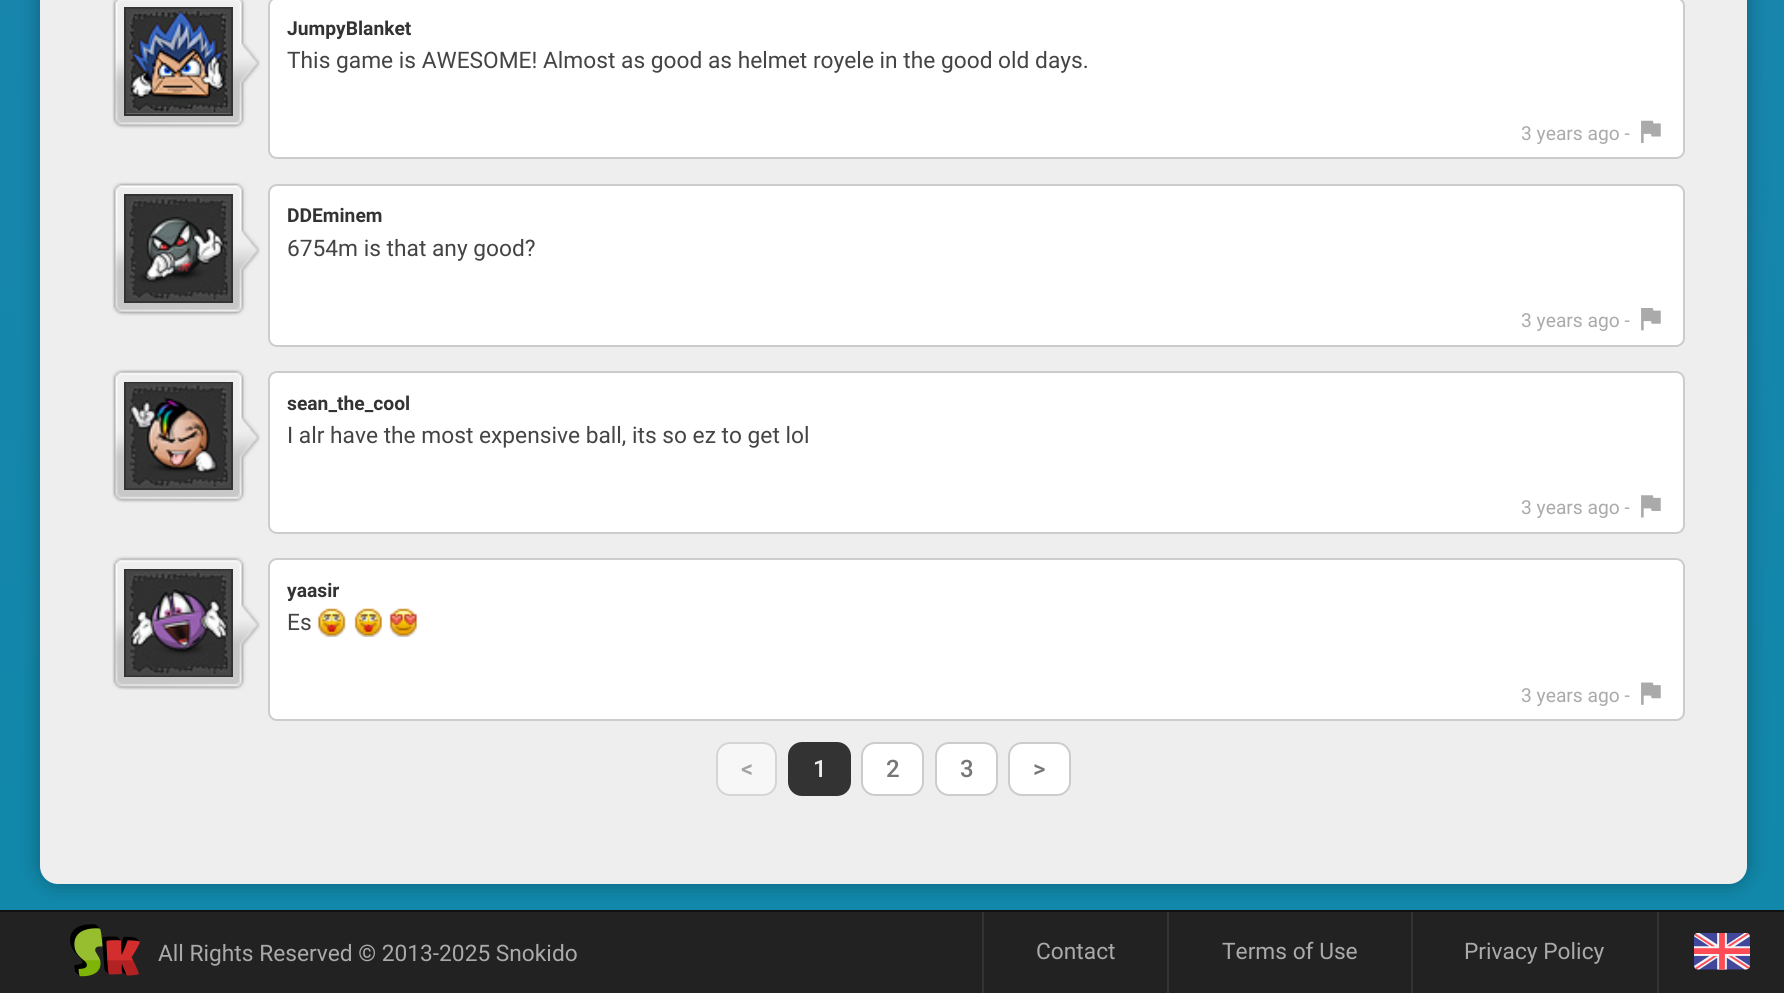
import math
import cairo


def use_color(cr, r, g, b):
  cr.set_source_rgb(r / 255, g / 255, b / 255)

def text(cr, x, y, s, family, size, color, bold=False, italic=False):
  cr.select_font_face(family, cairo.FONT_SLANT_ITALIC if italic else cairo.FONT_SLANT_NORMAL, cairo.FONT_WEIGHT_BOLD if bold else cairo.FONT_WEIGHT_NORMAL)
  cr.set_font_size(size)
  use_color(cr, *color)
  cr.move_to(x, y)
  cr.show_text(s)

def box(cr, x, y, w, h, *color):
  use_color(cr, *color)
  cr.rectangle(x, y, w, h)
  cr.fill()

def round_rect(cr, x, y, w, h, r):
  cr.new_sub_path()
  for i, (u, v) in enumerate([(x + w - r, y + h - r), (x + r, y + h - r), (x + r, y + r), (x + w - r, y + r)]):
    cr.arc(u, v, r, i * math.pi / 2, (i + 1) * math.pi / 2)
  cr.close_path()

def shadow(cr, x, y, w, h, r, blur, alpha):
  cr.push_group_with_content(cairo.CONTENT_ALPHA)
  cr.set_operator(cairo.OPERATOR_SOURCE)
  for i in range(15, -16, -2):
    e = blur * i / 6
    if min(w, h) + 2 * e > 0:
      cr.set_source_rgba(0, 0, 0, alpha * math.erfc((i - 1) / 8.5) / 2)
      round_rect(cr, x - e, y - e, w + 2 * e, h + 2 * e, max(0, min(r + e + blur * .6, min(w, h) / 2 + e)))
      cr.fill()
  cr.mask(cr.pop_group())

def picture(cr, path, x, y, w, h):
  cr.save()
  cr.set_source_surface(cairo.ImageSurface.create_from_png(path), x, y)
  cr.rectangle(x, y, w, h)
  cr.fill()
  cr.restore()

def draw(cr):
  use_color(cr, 34, 34, 34)
  cr.paint()
  picture(cr, "img_01.png", 0, 0, 1784, 910)
  use_color(cr, 0, 0, 0)
  shadow(cr, 40, -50, 1707, 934, 18, 10.5, 0.3)
  use_color(cr, 238, 238, 238)
  round_rect(cr, 40, -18, 1707, 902, 18)
  cr.fill()
  picture(cr, "img_02.png", 112, 0, 148, 129)
  cr.rectangle(125, 8, 107, 107)
  use_color(cr, 51, 51, 51)
  cr.stroke()
  picture(cr, "img_03.png", 126, 8, 105, 106)
  use_color(cr, 255, 255, 255)
  round_rect(cr, 269, -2, 1415, 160, 8)
  cr.fill_preserve()
  use_color(cr, 204, 204, 204)
  cr.stroke()
  picture(cr, "img_04.png", 1641, 120, 20, 24)
  picture(cr, "img_05.png", 112, 182, 148, 134)
  cr.rectangle(125, 195, 107, 107)
  use_color(cr, 51, 51, 51)
  cr.stroke()
  picture(cr, "img_06.png", 126, 196, 105, 105)
  use_color(cr, 255, 255, 255)
  round_rect(cr, 269, 185, 1415, 161, 8)
  cr.fill_preserve()
  use_color(cr, 204, 204, 204)
  cr.stroke()
  picture(cr, "img_07.png", 1641, 308, 20, 23)
  picture(cr, "img_08.png", 112, 369, 148, 134)
  cr.rectangle(125, 383, 107, 106)
  use_color(cr, 51, 51, 51)
  cr.stroke()
  picture(cr, "img_09.png", 126, 383, 105, 106)
  use_color(cr, 255, 255, 255)
  round_rect(cr, 269, 372, 1415, 161, 8)
  cr.fill_preserve()
  use_color(cr, 204, 204, 204)
  cr.stroke()
  picture(cr, "img_10.png", 1641, 495, 20, 23)
  picture(cr, "img_11.png", 112, 556, 148, 134)
  cr.rectangle(125, 570, 107, 106)
  use_color(cr, 51, 51, 51)
  cr.stroke()
  picture(cr, "img_12.png", 126, 570, 105, 106)
  use_color(cr, 255, 255, 255)
  round_rect(cr, 269, 559, 1415, 161, 8)
  cr.fill_preserve()
  use_color(cr, 204, 204, 204)
  cr.stroke()
  picture(cr, "img_13.png", 317, 608, 29, 29)
  picture(cr, "img_14.png", 354, 608, 29, 29)
  picture(cr, "img_15.png", 389, 608, 29, 29)
  picture(cr, "img_16.png", 1641, 682, 20, 23)
  use_color(cr, 247, 247, 247)
  round_rect(cr, 717, 743, 59, 52, 13)
  cr.fill_preserve()
  use_color(cr, 213, 213, 213)
  cr.stroke()
  use_color(cr, 51, 51, 51)
  round_rect(cr, 789, 743, 61, 52, 13)
  cr.fill_preserve()
  cr.stroke()
  use_color(cr, 255, 255, 255)
  round_rect(cr, 862, 743, 61, 52, 13)
  cr.fill_preserve()
  use_color(cr, 204, 204, 204)
  cr.stroke()
  use_color(cr, 255, 255, 255)
  round_rect(cr, 936, 743, 61, 52, 13)
  cr.fill_preserve()
  use_color(cr, 204, 204, 204)
  cr.stroke()
  use_color(cr, 255, 255, 255)
  round_rect(cr, 1009, 743, 61, 52, 13)
  cr.fill_preserve()
  use_color(cr, 204, 204, 204)
  cr.stroke()
  box(cr, 0, 910, 1784, 2, 17, 17, 17)
  picture(cr, "img_17.png", 70, 924, 70, 53)
  box(cr, 982, 912, 2, 81, 51, 51, 51)
  box(cr, 1167, 912, 2, 81, 51, 51, 51)
  box(cr, 1411, 912, 2, 81, 51, 51, 51)
  box(cr, 1657, 912, 2, 81, 51, 51, 51)
  picture(cr, "img_18.png", 1694, 933, 56, 37)
  text(cr, 287, 35, "JumpyBlanket", "Roboto", 19.25, (51, 51, 51), bold=True)
  text(cr, 287, 68, "This game is AWESOME! Almost as good as helmet royele in the good old days.", "Roboto", 22.75, (68, 68, 68))
  text(cr, 1521, 140, "3 years ago -", "Roboto", 19.25, (170, 170, 170))
  text(cr, 287, 222, "DDEminem", "Roboto", 19.25, (51, 51, 51), bold=True)
  text(cr, 287, 256, "6754m is that any good?", "Roboto", 22.75, (68, 68, 68))
  text(cr, 1521, 327, "3 years ago -", "Roboto", 19.25, (170, 170, 170))
  text(cr, 287, 410, "sean_the_cool", "Roboto", 19.25, (51, 51, 51), bold=True)
  text(cr, 287, 443, "I alr have the most expensive ball, its so ez to get lol", "Roboto", 22.75, (68, 68, 68))
  text(cr, 1521, 514, "3 years ago -", "Roboto", 19.25, (170, 170, 170))
  text(cr, 287, 597, "yaasir", "Roboto", 19.25, (51, 51, 51), bold=True)
  text(cr, 287, 630, "Es", "Roboto", 22.75, (68, 68, 68))
  text(cr, 1521, 702, "3 years ago -", "Roboto", 19.25, (170, 170, 170))
  text(cr, 741, 777, "<", "Roboto Medium", 24, (162, 162, 162))
  text(cr, 813, 777, "1", "Roboto Medium", 24, (238, 238, 238))
  text(cr, 886, 777, "2", "Roboto Medium", 24, (119, 119, 119))
  text(cr, 960, 777, "3", "Roboto Medium", 24, (119, 119, 119))
  text(cr, 1033, 777, ">", "Roboto Medium", 24, (119, 119, 119))
  text(cr, 158, 961, "All Rights Reserved © 2013-2025 Snokido", "Roboto", 22.75, (170, 170, 170))
  text(cr, 1036, 959, "Contact", "Roboto", 22.75, (170, 170, 170))
  text(cr, 1222, 959, "Terms of Use", "Roboto", 22.75, (170, 170, 170))
  text(cr, 1464, 959, "Privacy Policy", "Roboto", 22.75, (170, 170, 170))


surface = cairo.ImageSurface(cairo.FORMAT_RGB24, 1784, 993)
cr = cairo.Context(surface)
options = cairo.FontOptions()
options.set_hint_metrics(cairo.HINT_METRICS_OFF)
options.set_hint_style(cairo.HINT_STYLE_NONE)
cr.set_font_options(options)
cr.set_miter_limit(4)
draw(cr)
surface.write_to_png("out.png")
